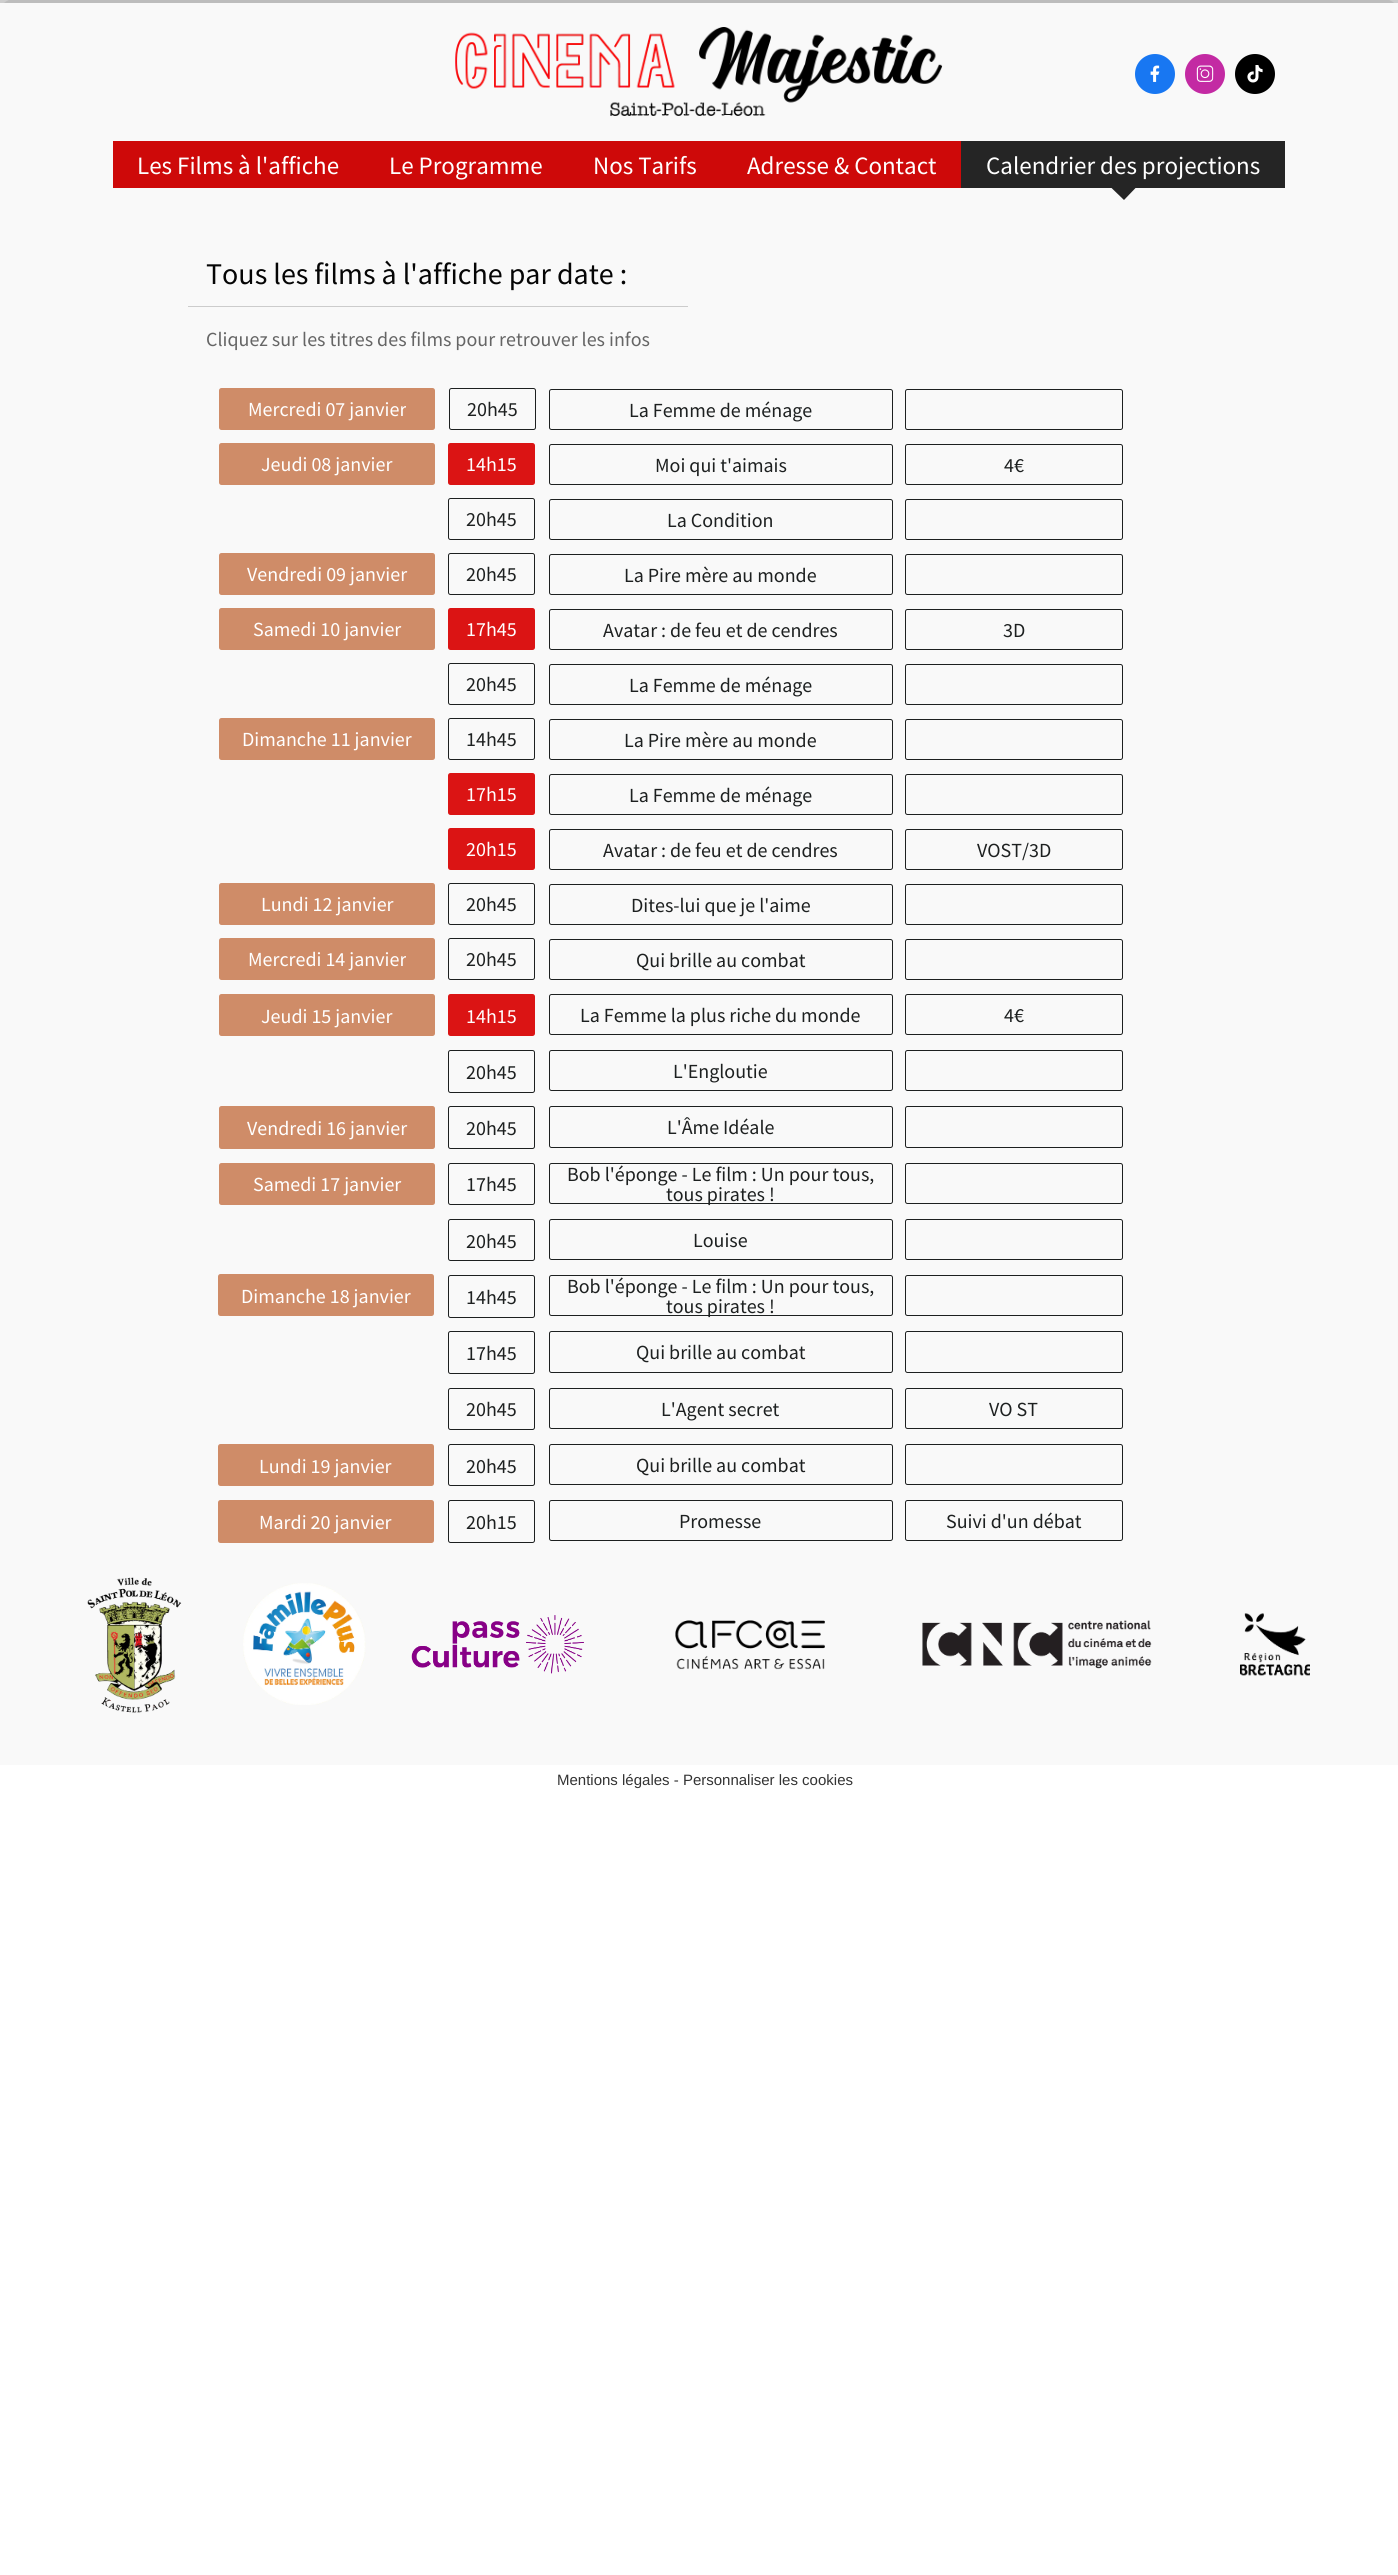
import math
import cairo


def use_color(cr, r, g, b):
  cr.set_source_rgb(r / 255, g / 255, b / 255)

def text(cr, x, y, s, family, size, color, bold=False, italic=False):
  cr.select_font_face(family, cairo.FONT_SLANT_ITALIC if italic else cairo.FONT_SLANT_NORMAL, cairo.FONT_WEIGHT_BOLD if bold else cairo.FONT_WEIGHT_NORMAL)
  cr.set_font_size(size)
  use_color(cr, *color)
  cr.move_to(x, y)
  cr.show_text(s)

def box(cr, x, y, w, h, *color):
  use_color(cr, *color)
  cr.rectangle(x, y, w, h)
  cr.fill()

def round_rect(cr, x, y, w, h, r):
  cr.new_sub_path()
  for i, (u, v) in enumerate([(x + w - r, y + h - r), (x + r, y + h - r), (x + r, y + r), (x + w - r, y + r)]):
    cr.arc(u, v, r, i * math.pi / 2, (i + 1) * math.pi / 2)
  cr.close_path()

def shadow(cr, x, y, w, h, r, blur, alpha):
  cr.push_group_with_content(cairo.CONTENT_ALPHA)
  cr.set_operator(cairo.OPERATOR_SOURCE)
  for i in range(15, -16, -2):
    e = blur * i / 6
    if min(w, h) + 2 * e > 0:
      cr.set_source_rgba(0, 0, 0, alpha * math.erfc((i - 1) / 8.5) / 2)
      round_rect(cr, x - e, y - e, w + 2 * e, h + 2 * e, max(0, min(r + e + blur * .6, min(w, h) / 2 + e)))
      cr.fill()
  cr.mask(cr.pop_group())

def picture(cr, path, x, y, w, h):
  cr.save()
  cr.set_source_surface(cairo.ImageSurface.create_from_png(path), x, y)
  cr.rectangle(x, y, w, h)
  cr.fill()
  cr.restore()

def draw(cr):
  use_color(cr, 255, 255, 255)
  cr.paint()
  box(cr, 0, 0, 1398, 1765, 249, 249, 249)
  cr.save()
  cr.rectangle(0, 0, 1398, 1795)
  cr.clip()
  cr.set_fill_rule(cairo.FILL_RULE_EVEN_ODD)
  cr.new_path()
  cr.move_to(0, 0)
  cr.line_to(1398, 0)
  cr.line_to(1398, 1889)
  cr.line_to(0, 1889)
  cr.close_path()
  cr.move_to(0, 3)
  cr.line_to(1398, 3)
  cr.line_to(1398, 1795)
  cr.line_to(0, 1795)
  cr.close_path()
  cr.clip()
  use_color(cr, 130, 130, 130)
  shadow(cr, 0, 3, 1398, 1792, 0, 31, 1)
  cr.restore()
  cr.set_source_rgba(0.976, 0.976, 0.976, 0.9)
  cr.rectangle(1397, 3, 1, 1762)
  cr.fill()
  picture(cr, "img_01.png", 455, 27, 488, 89)
  use_color(cr, 24, 119, 242)
  cr.arc(1155, 74, 20, 0, 2 * math.pi)
  cr.fill()
  picture(cr, "img_02.png", 1150, 65, 10, 17)
  use_color(cr, 195, 42, 163)
  cr.arc(1205, 74, 20, 0, 2 * math.pi)
  cr.fill()
  picture(cr, "img_03.png", 1196, 65, 18, 17)
  use_color(cr, 0, 0, 0)
  cr.arc(1255, 74, 20, 0, 2 * math.pi)
  cr.fill()
  picture(cr, "img_04.png", 1247, 65, 16, 18)
  box(cr, 113, 141, 848, 47, 206, 9, 9)
  box(cr, 961, 141, 324, 47, 37, 37, 37)
  cr.new_path()
  cr.move_to(1111, 187.5)
  cr.line_to(1136, 187.5)
  cr.line_to(1124, 200)
  cr.close_path()
  cr.fill()
  box(cr, 188, 306, 500, 1, 204, 204, 204)
  use_color(cr, 207, 140, 104)
  round_rect(cr, 219, 388, 216, 42, 2.5)
  cr.fill()
  round_rect(cr, 449.5, 388.5, 86, 41, 2)
  use_color(cr, 29, 32, 32)
  cr.set_line_width(1)
  cr.stroke()
  round_rect(cr, 549.5, 389.5, 343, 40, 2)
  cr.stroke()
  round_rect(cr, 905.5, 389.5, 217, 40, 2)
  cr.stroke()
  use_color(cr, 207, 140, 104)
  round_rect(cr, 219, 443, 216, 42, 2.5)
  cr.fill()
  use_color(cr, 219, 20, 20)
  round_rect(cr, 448, 443, 87, 42, 2.5)
  cr.fill()
  round_rect(cr, 549.5, 444.5, 343, 40, 2)
  use_color(cr, 29, 32, 32)
  cr.stroke()
  round_rect(cr, 905.5, 444.5, 217, 40, 2)
  cr.stroke()
  round_rect(cr, 448.5, 498.5, 86, 41, 2)
  cr.stroke()
  round_rect(cr, 549.5, 499.5, 343, 40, 2)
  cr.stroke()
  round_rect(cr, 905.5, 499.5, 217, 40, 2)
  cr.stroke()
  use_color(cr, 207, 140, 104)
  round_rect(cr, 219, 553, 216, 42, 2.5)
  cr.fill()
  round_rect(cr, 448.5, 553.5, 86, 41, 2)
  use_color(cr, 29, 32, 32)
  cr.stroke()
  round_rect(cr, 549.5, 554.5, 343, 40, 2)
  cr.stroke()
  round_rect(cr, 905.5, 554.5, 217, 40, 2)
  cr.stroke()
  use_color(cr, 207, 140, 104)
  round_rect(cr, 219, 608, 216, 42, 2.5)
  cr.fill()
  use_color(cr, 219, 20, 20)
  round_rect(cr, 448, 608, 87, 42, 2.5)
  cr.fill()
  round_rect(cr, 549.5, 609.5, 343, 40, 2)
  use_color(cr, 29, 32, 32)
  cr.stroke()
  round_rect(cr, 905.5, 609.5, 217, 40, 2)
  cr.stroke()
  round_rect(cr, 448.5, 663.5, 86, 41, 2)
  cr.stroke()
  round_rect(cr, 549.5, 664.5, 343, 40, 2)
  cr.stroke()
  round_rect(cr, 905.5, 664.5, 217, 40, 2)
  cr.stroke()
  use_color(cr, 207, 140, 104)
  round_rect(cr, 219, 718, 216, 42, 2.5)
  cr.fill()
  round_rect(cr, 448.5, 718.5, 86, 41, 2)
  use_color(cr, 29, 32, 32)
  cr.stroke()
  round_rect(cr, 549.5, 719.5, 343, 40, 2)
  cr.stroke()
  round_rect(cr, 905.5, 719.5, 217, 40, 2)
  cr.stroke()
  use_color(cr, 219, 20, 20)
  round_rect(cr, 448, 773, 87, 42, 2.5)
  cr.fill()
  round_rect(cr, 549.5, 774.5, 343, 40, 2)
  use_color(cr, 29, 32, 32)
  cr.stroke()
  round_rect(cr, 905.5, 774.5, 217, 40, 2)
  cr.stroke()
  use_color(cr, 219, 20, 20)
  round_rect(cr, 448, 828, 87, 42, 2.5)
  cr.fill()
  round_rect(cr, 549.5, 829.5, 343, 40, 2)
  use_color(cr, 29, 32, 32)
  cr.stroke()
  round_rect(cr, 905.5, 829.5, 217, 40, 2)
  cr.stroke()
  use_color(cr, 207, 140, 104)
  round_rect(cr, 219, 883, 216, 42, 2.5)
  cr.fill()
  round_rect(cr, 448.5, 883.5, 86, 41, 2)
  use_color(cr, 29, 32, 32)
  cr.stroke()
  round_rect(cr, 549.5, 884.5, 343, 40, 2)
  cr.stroke()
  round_rect(cr, 905.5, 884.5, 217, 40, 2)
  cr.stroke()
  use_color(cr, 207, 140, 104)
  round_rect(cr, 219, 938, 216, 42, 2.5)
  cr.fill()
  round_rect(cr, 448.5, 938.5, 86, 41, 2)
  use_color(cr, 29, 32, 32)
  cr.stroke()
  round_rect(cr, 549.5, 939.5, 343, 40, 2)
  cr.stroke()
  round_rect(cr, 905.5, 939.5, 217, 40, 2)
  cr.stroke()
  use_color(cr, 207, 140, 104)
  round_rect(cr, 219, 994, 216, 42, 2.5)
  cr.fill()
  use_color(cr, 219, 20, 20)
  round_rect(cr, 448, 994, 87, 42, 2.5)
  cr.fill()
  round_rect(cr, 549.5, 994.5, 343, 40, 2)
  use_color(cr, 29, 32, 32)
  cr.stroke()
  round_rect(cr, 905.5, 994.5, 217, 40, 2)
  cr.stroke()
  round_rect(cr, 448.5, 1050.5, 86, 42, 2)
  cr.stroke()
  round_rect(cr, 549.5, 1050.5, 343, 40, 2)
  cr.stroke()
  round_rect(cr, 905.5, 1050.5, 217, 40, 2)
  cr.stroke()
  use_color(cr, 207, 140, 104)
  round_rect(cr, 219, 1106, 216, 43, 2.5)
  cr.fill()
  round_rect(cr, 448.5, 1106.5, 86, 42, 2)
  use_color(cr, 29, 32, 32)
  cr.stroke()
  round_rect(cr, 549.5, 1106.5, 343, 41, 2)
  cr.stroke()
  round_rect(cr, 905.5, 1106.5, 217, 41, 2)
  cr.stroke()
  use_color(cr, 207, 140, 104)
  round_rect(cr, 219, 1163, 216, 42, 2.5)
  cr.fill()
  round_rect(cr, 448.5, 1163.5, 86, 41, 2)
  use_color(cr, 29, 32, 32)
  cr.stroke()
  round_rect(cr, 549.5, 1163.5, 343, 40, 2)
  cr.stroke()
  round_rect(cr, 905.5, 1163.5, 217, 40, 2)
  cr.stroke()
  round_rect(cr, 448.5, 1219.5, 86, 41, 2)
  cr.stroke()
  round_rect(cr, 549.5, 1219.5, 343, 40, 2)
  cr.stroke()
  round_rect(cr, 905.5, 1219.5, 217, 40, 2)
  cr.stroke()
  use_color(cr, 207, 140, 104)
  round_rect(cr, 218, 1274, 216, 42, 2.5)
  cr.fill()
  round_rect(cr, 448.5, 1275.5, 86, 42, 2)
  use_color(cr, 29, 32, 32)
  cr.stroke()
  round_rect(cr, 549.5, 1275.5, 343, 40, 2)
  cr.stroke()
  round_rect(cr, 905.5, 1275.5, 217, 40, 2)
  cr.stroke()
  round_rect(cr, 448.5, 1331.5, 86, 42, 2)
  cr.stroke()
  round_rect(cr, 549.5, 1331.5, 343, 41, 2)
  cr.stroke()
  round_rect(cr, 905.5, 1331.5, 217, 41, 2)
  cr.stroke()
  round_rect(cr, 448.5, 1388.5, 86, 41, 2)
  cr.stroke()
  round_rect(cr, 549.5, 1388.5, 343, 40, 2)
  cr.stroke()
  round_rect(cr, 905.5, 1388.5, 217, 40, 2)
  cr.stroke()
  use_color(cr, 207, 140, 104)
  round_rect(cr, 218, 1444, 216, 42, 2.5)
  cr.fill()
  round_rect(cr, 448.5, 1444.5, 86, 41, 2)
  use_color(cr, 29, 32, 32)
  cr.stroke()
  round_rect(cr, 549.5, 1444.5, 343, 40, 2)
  cr.stroke()
  round_rect(cr, 905.5, 1444.5, 217, 40, 2)
  cr.stroke()
  use_color(cr, 207, 140, 104)
  round_rect(cr, 218, 1500, 216, 43, 2.5)
  cr.fill()
  round_rect(cr, 448.5, 1500.5, 86, 42, 2)
  use_color(cr, 29, 32, 32)
  cr.stroke()
  round_rect(cr, 549.5, 1500.5, 343, 40, 2)
  cr.stroke()
  round_rect(cr, 905.5, 1500.5, 217, 40, 2)
  cr.stroke()
  picture(cr, "img_05.png", 87, 1577, 95, 136)
  picture(cr, "img_06.png", 243, 1583, 123, 122)
  picture(cr, "img_07.png", 411, 1615, 173, 59)
  picture(cr, "img_08.png", 675, 1620, 150, 50)
  picture(cr, "img_09.png", 922, 1620, 230, 49)
  picture(cr, "img_10.png", 1240, 1613, 70, 63)
  box(cr, 1397, 1765, 1, 30, 255, 255, 255)
  text(cr, 137, 174, "Les Films à l'affiche", "Source Sans Pro", 25, (255, 255, 255))
  text(cr, 389, 174, "Le Programme", "Source Sans Pro", 25, (255, 255, 255))
  text(cr, 593, 174, "Nos Tarifs", "Source Sans Pro", 25, (255, 255, 255))
  text(cr, 747, 174, "Adresse & Contact", "Source Sans Pro", 25, (255, 255, 255))
  text(cr, 986, 174, "Calendrier des projections", "Source Sans Pro", 25, (255, 255, 255))
  text(cr, 206, 284, "Tous les films à l'affiche par date :", "Source Sans Pro", 30, (5, 5, 5))
  text(cr, 206, 346, "Cliquez sur les titres des films pour retrouver les infos", "Source Sans Pro", 20, (101, 101, 101))
  text(cr, 248, 416, "Mercredi 07 janvier", "Source Sans Pro", 20, (255, 255, 255))
  text(cr, 467, 416, "20h45", "Source Sans Pro", 20, (29, 32, 32))
  text(cr, 629, 417, "La Femme de ménage", "Source Sans Pro", 20, (29, 32, 32))
  text(cr, 261, 471, "Jeudi 08 janvier", "Source Sans Pro", 20, (255, 255, 255))
  text(cr, 466, 471, "14h15", "Source Sans Pro", 20, (255, 255, 255))
  text(cr, 655, 472, "Moi qui t'aimais", "Source Sans Pro", 20, (29, 32, 32))
  text(cr, 1004, 472, "4€", "Source Sans Pro", 20, (29, 32, 32))
  text(cr, 466, 526, "20h45", "Source Sans Pro", 20, (29, 32, 32))
  text(cr, 667, 527, "La Condition", "Source Sans Pro", 20, (29, 32, 32))
  text(cr, 247, 581, "Vendredi 09 janvier", "Source Sans Pro", 20, (255, 255, 255))
  text(cr, 466, 581, "20h45", "Source Sans Pro", 20, (29, 32, 32))
  text(cr, 624, 582, "La Pire mère au monde", "Source Sans Pro", 20, (29, 32, 32))
  text(cr, 253, 636, "Samedi 10 janvier", "Source Sans Pro", 20, (255, 255, 255))
  text(cr, 466, 636, "17h45", "Source Sans Pro", 20, (255, 255, 255))
  text(cr, 603, 637, "Avatar : de feu et de cendres", "Source Sans Pro", 20, (29, 32, 32))
  text(cr, 1003, 637, "3D", "Source Sans Pro", 20, (29, 32, 32))
  text(cr, 466, 691, "20h45", "Source Sans Pro", 20, (29, 32, 32))
  text(cr, 629, 692, "La Femme de ménage", "Source Sans Pro", 20, (29, 32, 32))
  text(cr, 242, 746, "Dimanche 11 janvier", "Source Sans Pro", 20, (255, 255, 255))
  text(cr, 466, 746, "14h45", "Source Sans Pro", 20, (29, 32, 32))
  text(cr, 624, 747, "La Pire mère au monde", "Source Sans Pro", 20, (29, 32, 32))
  text(cr, 466, 801, "17h15", "Source Sans Pro", 20, (255, 255, 255))
  text(cr, 629, 802, "La Femme de ménage", "Source Sans Pro", 20, (29, 32, 32))
  text(cr, 466, 856, "20h15", "Source Sans Pro", 20, (255, 255, 255))
  text(cr, 603, 857, "Avatar : de feu et de cendres", "Source Sans Pro", 20, (29, 32, 32))
  text(cr, 977, 857, "VOST/3D", "Source Sans Pro", 20, (29, 32, 32))
  text(cr, 261, 911, "Lundi 12 janvier", "Source Sans Pro", 20, (255, 255, 255))
  text(cr, 466, 911, "20h45", "Source Sans Pro", 20, (29, 32, 32))
  text(cr, 631, 912, "Dites-lui que je l'aime", "Source Sans Pro", 20, (29, 32, 32))
  text(cr, 248, 966, "Mercredi 14 janvier", "Source Sans Pro", 20, (255, 255, 255))
  text(cr, 466, 966, "20h45", "Source Sans Pro", 20, (29, 32, 32))
  text(cr, 636, 967, "Qui brille au combat", "Source Sans Pro", 20, (29, 32, 32))
  text(cr, 261, 1023, "Jeudi 15 janvier", "Source Sans Pro", 20, (255, 255, 255))
  text(cr, 466, 1023, "14h15", "Source Sans Pro", 20, (255, 255, 255))
  text(cr, 580, 1022, "La Femme la plus riche du monde", "Source Sans Pro", 20, (29, 32, 32))
  text(cr, 1004, 1022, "4€", "Source Sans Pro", 20, (29, 32, 32))
  text(cr, 466, 1079, "20h45", "Source Sans Pro", 20, (29, 32, 32))
  text(cr, 673, 1078, "L'Engloutie", "Source Sans Pro", 20, (29, 32, 32))
  text(cr, 247, 1135, "Vendredi 16 janvier", "Source Sans Pro", 20, (255, 255, 255))
  text(cr, 466, 1135, "20h45", "Source Sans Pro", 20, (29, 32, 32))
  text(cr, 667, 1134, "L'Âme Idéale", "Source Sans Pro", 20, (29, 32, 32))
  text(cr, 253, 1191, "Samedi 17 janvier", "Source Sans Pro", 20, (255, 255, 255))
  text(cr, 466, 1191, "17h45", "Source Sans Pro", 20, (29, 32, 32))
  text(cr, 567, 1181, "Bob l'éponge - Le film : Un pour tous,", "Source Sans Pro", 20, (29, 32, 32))
  text(cr, 666, 1201, "tous pirates !", "Source Sans Pro", 20, (29, 32, 32))
  text(cr, 466, 1248, "20h45", "Source Sans Pro", 20, (29, 32, 32))
  text(cr, 693, 1247, "Louise", "Source Sans Pro", 20, (29, 32, 32))
  text(cr, 241, 1303, "Dimanche 18 janvier", "Source Sans Pro", 20, (255, 255, 255))
  text(cr, 466, 1304, "14h45", "Source Sans Pro", 20, (29, 32, 32))
  text(cr, 567, 1293, "Bob l'éponge - Le film : Un pour tous,", "Source Sans Pro", 20, (29, 32, 32))
  text(cr, 666, 1313, "tous pirates !", "Source Sans Pro", 20, (29, 32, 32))
  text(cr, 466, 1360, "17h45", "Source Sans Pro", 20, (29, 32, 32))
  text(cr, 636, 1359, "Qui brille au combat", "Source Sans Pro", 20, (29, 32, 32))
  text(cr, 466, 1416, "20h45", "Source Sans Pro", 20, (29, 32, 32))
  text(cr, 661, 1416, "L'Agent secret", "Source Sans Pro", 20, (29, 32, 32))
  text(cr, 989, 1416, "VO ST", "Source Sans Pro", 20, (29, 32, 32))
  text(cr, 259, 1473, "Lundi 19 janvier", "Source Sans Pro", 20, (255, 255, 255))
  text(cr, 466, 1473, "20h45", "Source Sans Pro", 20, (29, 32, 32))
  text(cr, 636, 1472, "Qui brille au combat", "Source Sans Pro", 20, (29, 32, 32))
  text(cr, 259, 1529, "Mardi 20 janvier", "Source Sans Pro", 20, (255, 255, 255))
  text(cr, 466, 1529, "20h15", "Source Sans Pro", 20, (29, 32, 32))
  text(cr, 679, 1528, "Promesse", "Source Sans Pro", 20, (29, 32, 32))
  text(cr, 946, 1528, "Suivi d'un débat", "Source Sans Pro", 20, (29, 32, 32))
  text(cr, 557, 1785, "Mentions légales - Personnaliser les cookies", "Liberation Sans", 15, (51, 51, 51))


surface = cairo.ImageSurface(cairo.FORMAT_RGB24, 1398, 2575)
cr = cairo.Context(surface)
options = cairo.FontOptions()
options.set_hint_metrics(cairo.HINT_METRICS_OFF)
options.set_hint_style(cairo.HINT_STYLE_NONE)
cr.set_font_options(options)
cr.set_miter_limit(4)
draw(cr)
surface.write_to_png("out.png")
